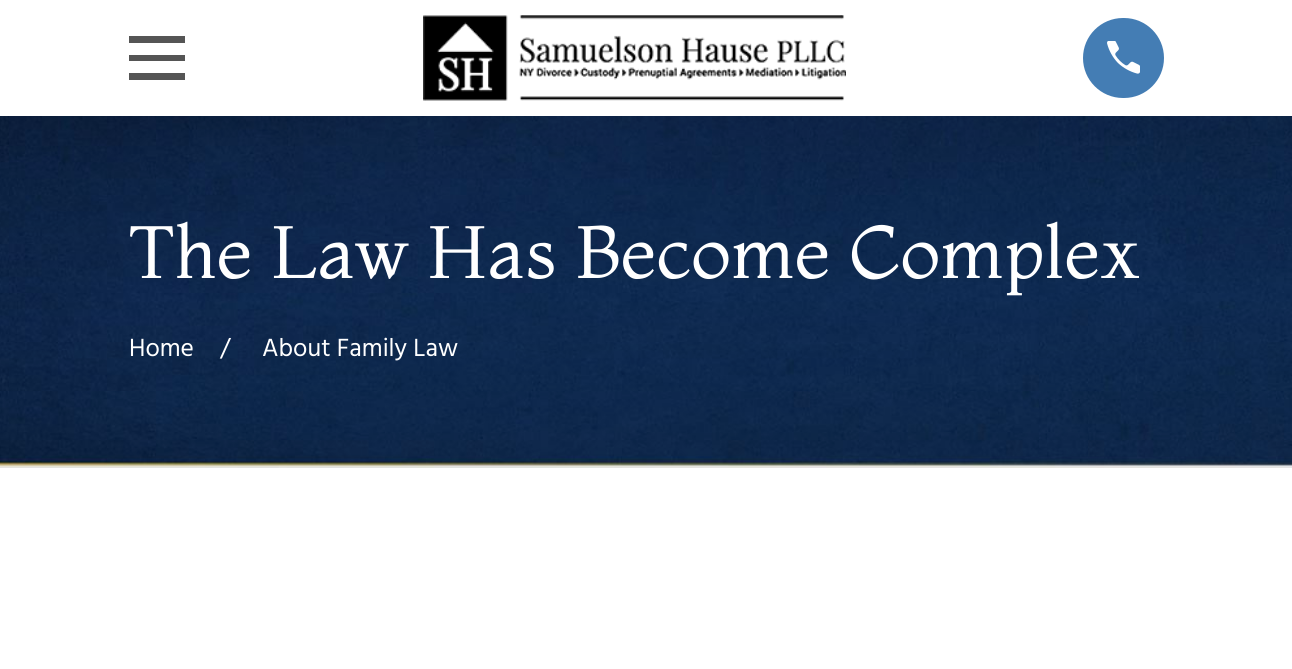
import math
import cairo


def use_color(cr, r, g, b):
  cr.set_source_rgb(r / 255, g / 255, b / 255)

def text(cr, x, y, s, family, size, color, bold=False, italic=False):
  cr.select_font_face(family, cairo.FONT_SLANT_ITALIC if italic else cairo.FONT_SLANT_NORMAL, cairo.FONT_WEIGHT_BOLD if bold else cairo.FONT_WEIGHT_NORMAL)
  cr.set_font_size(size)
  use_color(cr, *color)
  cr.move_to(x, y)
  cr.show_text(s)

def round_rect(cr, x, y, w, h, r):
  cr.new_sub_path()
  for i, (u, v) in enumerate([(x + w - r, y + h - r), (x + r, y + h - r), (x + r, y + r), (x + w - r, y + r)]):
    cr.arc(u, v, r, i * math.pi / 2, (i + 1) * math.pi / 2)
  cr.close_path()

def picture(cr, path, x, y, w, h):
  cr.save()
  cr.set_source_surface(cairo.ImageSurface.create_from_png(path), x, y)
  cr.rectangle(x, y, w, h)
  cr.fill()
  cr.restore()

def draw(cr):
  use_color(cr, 255, 255, 255)
  cr.paint()
  use_color(cr, 85, 85, 85)
  cr.new_path()
  cr.move_to(129, 36)
  cr.line_to(129, 43)
  cr.line_to(185, 43)
  cr.line_to(185, 36)
  cr.close_path()
  cr.move_to(129, 55)
  cr.line_to(129, 61)
  cr.line_to(185, 61)
  cr.line_to(185, 55)
  cr.close_path()
  cr.move_to(129, 73)
  cr.line_to(129, 80)
  cr.line_to(185, 80)
  cr.line_to(185, 73)
  cr.close_path()
  cr.fill()
  picture(cr, "img_01.png", 423, 15, 423, 86)
  use_color(cr, 68, 125, 180)
  round_rect(cr, 1083, 18, 81, 80, 40)
  cr.fill()
  picture(cr, "img_02.png", 1107, 41, 33, 33)
  picture(cr, "img_03.png", 0, 116, 1292, 352)
  text(cr, 129, 278, "The Law Has Become Complex", "Montaga", 74, (255, 255, 255))
  text(cr, 129, 356, "Home", "Hind", 25.5, (255, 255, 255))
  text(cr, 220, 356, "/", "Hind", 25.5, (255, 255, 255))
  text(cr, 262, 356, "About Family Law", "Hind", 25.5, (255, 255, 255))


surface = cairo.ImageSurface(cairo.FORMAT_RGB24, 1292, 669)
cr = cairo.Context(surface)
options = cairo.FontOptions()
options.set_hint_metrics(cairo.HINT_METRICS_OFF)
options.set_hint_style(cairo.HINT_STYLE_NONE)
cr.set_font_options(options)
cr.set_miter_limit(4)
draw(cr)
surface.write_to_png("out.png")
